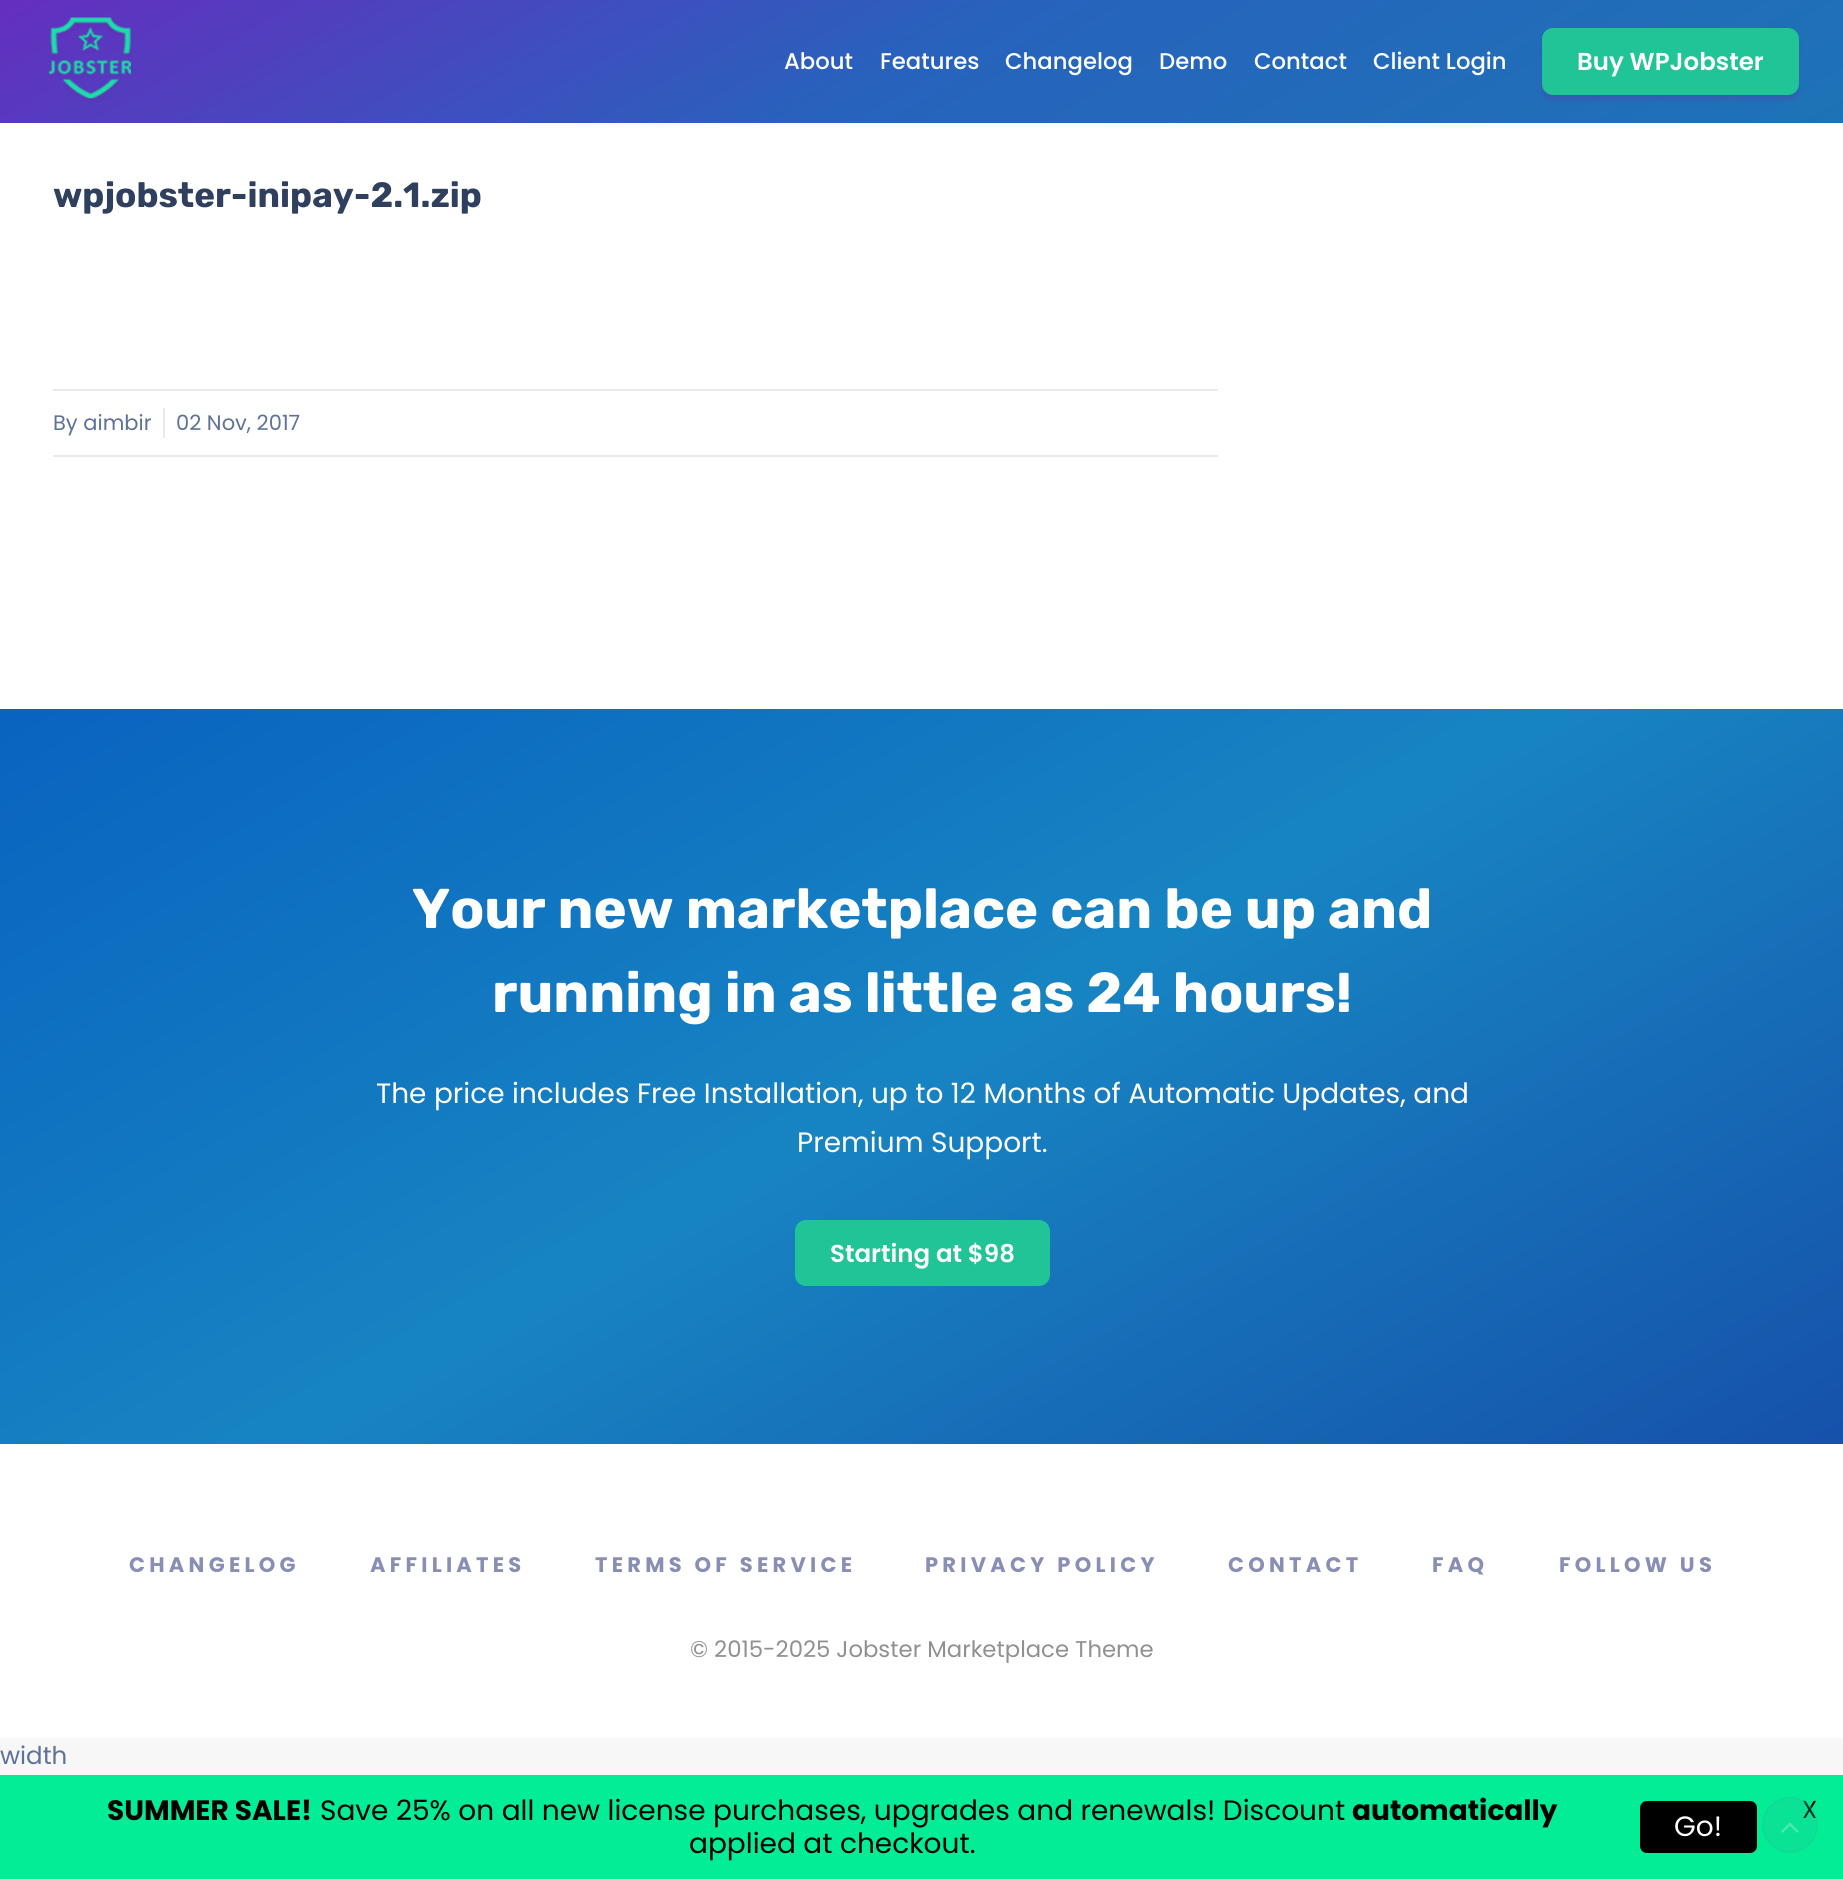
import math
import cairo


def use_color(cr, r, g, b):
  cr.set_source_rgb(r / 255, g / 255, b / 255)

def text(cr, x, y, s, family, size, color, bold=False, italic=False):
  cr.select_font_face(family, cairo.FONT_SLANT_ITALIC if italic else cairo.FONT_SLANT_NORMAL, cairo.FONT_WEIGHT_BOLD if bold else cairo.FONT_WEIGHT_NORMAL)
  cr.set_font_size(size)
  use_color(cr, *color)
  cr.move_to(x, y)
  cr.show_text(s)

def spaced_text(cr, x, y, s, letter, word):
  cr.move_to(x, y)
  for ch in s:
    cr.show_text(ch)
    cr.rel_move_to(letter + word * (ch == ' '), 0)

def box(cr, x, y, w, h, *color):
  use_color(cr, *color)
  cr.rectangle(x, y, w, h)
  cr.fill()

def round_rect(cr, x, y, w, h, r):
  cr.new_sub_path()
  for i, (u, v) in enumerate([(x + w - r, y + h - r), (x + r, y + h - r), (x + r, y + r), (x + w - r, y + r)]):
    cr.arc(u, v, r, i * math.pi / 2, (i + 1) * math.pi / 2)
  cr.close_path()

def shadow(cr, x, y, w, h, r, blur, alpha):
  cr.push_group_with_content(cairo.CONTENT_ALPHA)
  cr.set_operator(cairo.OPERATOR_SOURCE)
  for i in range(15, -16, -2):
    e = blur * i / 6
    if min(w, h) + 2 * e > 0:
      cr.set_source_rgba(0, 0, 0, alpha * math.erfc((i - 1) / 8.5) / 2)
      round_rect(cr, x - e, y - e, w + 2 * e, h + 2 * e, max(0, min(r + e + blur * .6, min(w, h) / 2 + e)))
      cr.fill()
  cr.mask(cr.pop_group())

def picture(cr, path, x, y, w, h):
  cr.save()
  cr.set_source_surface(cairo.ImageSurface.create_from_png(path), x, y)
  cr.rectangle(x, y, w, h)
  cr.fill()
  cr.restore()

def draw(cr):
  use_color(cr, 247, 247, 247)
  cr.paint()
  box(cr, 0, 123, 1843, 1615, 255, 255, 255)
  gradient = cairo.LinearGradient(1179, 507, 665, -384)
  gradient.add_color_stop_rgba(0, 0.114, 0.451, 0.714, 1)
  gradient.add_color_stop_rgba(0.5, 0.153, 0.388, 0.741, 1)
  gradient.add_color_stop_rgba(1, 0.396, 0.18, 0.749, 1)
  cr.set_source(gradient)
  cr.rectangle(0, 0, 1843, 123)
  cr.fill()
  picture(cr, "img_01.png", 49, 17, 82, 85)
  use_color(cr, 111, 36, 157)
  shadow(cr, 1542, 33, 257, 67, 11, 2.5, 0.25)
  use_color(cr, 32, 196, 151)
  round_rect(cr, 1542, 28, 257, 67, 11)
  cr.fill()
  box(cr, 53, 389, 1165, 2, 234, 234, 234)
  box(cr, 53, 455, 1165, 2, 234, 234, 234)
  box(cr, 163, 408, 2, 30, 234, 234, 234)
  gradient = cairo.LinearGradient(1312, 1751, 533, 401)
  gradient.add_color_stop_rgba(0, 0.086, 0.318, 0.667, 1)
  gradient.add_color_stop_rgba(0.5, 0.09, 0.518, 0.761, 1)
  gradient.add_color_stop_rgba(1, 0.035, 0.388, 0.753, 1)
  cr.set_source(gradient)
  cr.rectangle(0, 709, 1843, 735)
  cr.fill()
  use_color(cr, 32, 196, 151)
  round_rect(cr, 795, 1220, 255, 66, 11)
  cr.fill()
  box(cr, 0, 1775, 1843, 104, 3, 237, 150)
  use_color(cr, 0, 0, 0)
  round_rect(cr, 1640, 1801, 117, 52, 7)
  cr.fill()
  text(cr, 784, 69, "About", "Poppins Medium", 22.75, (255, 255, 255))
  text(cr, 880, 69, "Features", "Poppins Medium", 22.75, (255, 255, 255))
  text(cr, 1005, 69, "Changelog", "Poppins Medium", 22.75, (255, 255, 255))
  text(cr, 1159, 69, "Demo", "Poppins Medium", 22.75, (255, 255, 255))
  text(cr, 1254, 69, "Contact", "Poppins Medium", 22.75, (255, 255, 255))
  text(cr, 1373, 69, "Client Login", "Poppins Medium", 22.75, (255, 255, 255))
  text(cr, 1577, 70, "Buy WPJobster", "Poppins SemiBold", 24.5, (255, 255, 255))
  text(cr, 53, 207, "wpjobster-inipay-2.1.zip", "Rubik Light", 35, (47, 64, 94))
  text(cr, 53, 430, "By aimbir", "Poppins", 21, (93, 114, 150))
  text(cr, 176, 430, "02 Nov, 2017", "Poppins", 21, (93, 114, 150))
  text(cr, 412, 928, "Your new marketplace can be up and", "Rubik Light", 56, (255, 255, 255))
  text(cr, 492, 1012, "running in as little as 24 hours!", "Rubik Light", 56, (255, 255, 255))
  text(cr, 376, 1103, "The price includes Free Installation, up to 12 Months of Automatic Updates, and", "Poppins", 28, (255, 255, 255))
  text(cr, 797, 1152, "Premium Support.", "Poppins", 28, (255, 255, 255))
  text(cr, 830, 1262, "Starting at $98", "Poppins SemiBold", 24.5, (255, 255, 255))
  cr.select_font_face("Poppins", cairo.FONT_SLANT_NORMAL, cairo.FONT_WEIGHT_BOLD)
  cr.set_font_size(21)
  use_color(cr, 137, 142, 180)
  spaced_text(cr, 129, 1572, "CHANGELOG", 4.25, 0)
  spaced_text(cr, 370, 1572, "AFFILIATES", 4.25, 0)
  spaced_text(cr, 595, 1572, "TERMS OF SERVICE", 4.25, 0)
  spaced_text(cr, 925, 1572, "PRIVACY POLICY", 4.25, 0)
  spaced_text(cr, 1228, 1572, "CONTACT", 4.25, 0)
  spaced_text(cr, 1432, 1572, "FAQ", 4.25, 0)
  spaced_text(cr, 1559, 1572, "FOLLOW US", 4.25, 0)
  text(cr, 690, 1657, "© 2015-2025 Jobster Marketplace Theme", "Poppins", 22.75, (144, 144, 144))
  text(cr, 0, 1764, "width", "Poppins", 24.5, (93, 114, 150))
  text(cr, 107, 1820, "SUMMER SALE!", "Poppins", 28, (0, 0, 0), bold=True)
  text(cr, 320, 1820, "Save 25% on all new license purchases, upgrades and renewals! Discount", "Poppins", 28, (0, 0, 0))
  text(cr, 1352, 1820, "automatically", "Poppins", 28, (0, 0, 0), bold=True)
  text(cr, 689, 1853, "applied at checkout.", "Poppins", 28, (0, 0, 0))
  text(cr, 1802, 1818, "X", "Poppins", 24.5, (0, 0, 0))
  text(cr, 1674, 1836, "Go!", "Poppins", 28, (255, 255, 255))
  cr.set_source_rgba(0.125, 0.769, 0.592, 0.25)
  cr.new_path()
  cr.arc(1790, 1825, 28, 0, 2 * math.pi)
  cr.fill()
  cr.arc(1790, 1825, 27, 0, 2 * math.pi)
  cr.stroke()
  picture(cr, "img_02.png", 1781, 1822, 18, 11)


surface = cairo.ImageSurface(cairo.FORMAT_RGB24, 1843, 1879)
cr = cairo.Context(surface)
options = cairo.FontOptions()
options.set_hint_metrics(cairo.HINT_METRICS_OFF)
options.set_hint_style(cairo.HINT_STYLE_NONE)
cr.set_font_options(options)
cr.set_miter_limit(4)
draw(cr)
surface.write_to_png("out.png")
